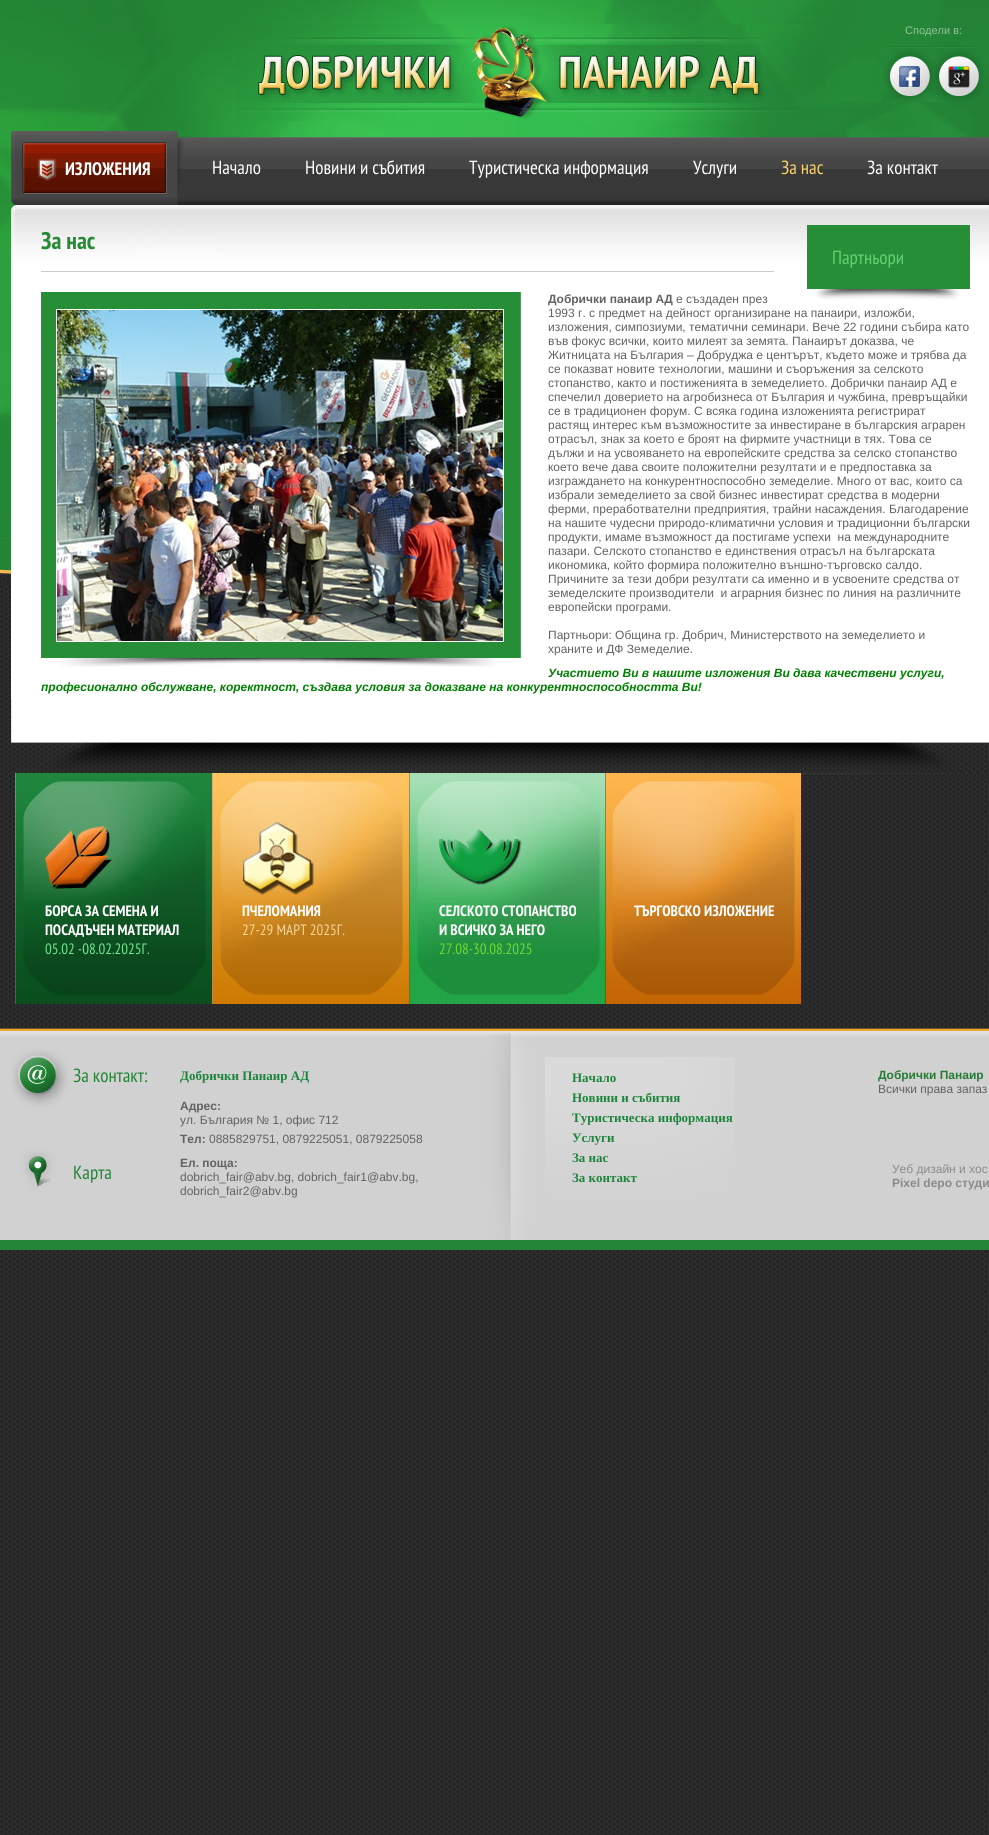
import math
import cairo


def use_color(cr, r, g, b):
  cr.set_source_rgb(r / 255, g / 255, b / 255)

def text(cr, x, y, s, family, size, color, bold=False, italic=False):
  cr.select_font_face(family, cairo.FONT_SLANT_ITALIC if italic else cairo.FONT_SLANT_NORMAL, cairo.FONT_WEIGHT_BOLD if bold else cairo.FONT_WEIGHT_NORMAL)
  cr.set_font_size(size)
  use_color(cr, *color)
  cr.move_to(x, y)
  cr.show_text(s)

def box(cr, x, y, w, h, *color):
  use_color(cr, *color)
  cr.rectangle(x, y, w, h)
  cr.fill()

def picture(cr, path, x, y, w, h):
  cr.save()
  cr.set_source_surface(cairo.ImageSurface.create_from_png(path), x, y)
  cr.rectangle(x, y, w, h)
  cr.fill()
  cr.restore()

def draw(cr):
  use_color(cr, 255, 255, 255)
  cr.paint()
  picture(cr, "img_01.png", 0, 586, 989, 1249)
  picture(cr, "img_02.png", 0, 0, 989, 586)
  picture(cr, "img_03.png", 236, 24, 590, 97)
  picture(cr, "img_04.png", 882, 46, 52, 56)
  picture(cr, "img_05.png", 934, 46, 51, 56)
  picture(cr, "img_06.png", 11, 131, 978, 74)
  picture(cr, "img_07.png", 22, 142, 145, 52)
  picture(cr, "img_08.png", 11, 205, 978, 494)
  box(cr, 41, 271, 733, 1, 206, 202, 202)
  picture(cr, "img_09.png", 815, 289, 145, 11)
  box(cr, 807, 225, 163, 64, 38, 142, 55)
  picture(cr, "img_10.png", 41, 292, 480, 375)
  picture(cr, "img_11.png", 11, 699, 978, 74)
  picture(cr, "img_12.png", 801, 773, 188, 4)
  picture(cr, "img_13.png", 15, 773, 197, 231)
  picture(cr, "img_14.png", 212, 773, 197, 231)
  picture(cr, "img_15.png", 409, 773, 197, 231)
  picture(cr, "img_16.png", 606, 773, 195, 231)
  picture(cr, "img_17.png", 0, 1028, 989, 222)
  picture(cr, "img_18.png", 12, 1033, 723, 207)
  text(cr, 905, 34, "Сподели в:", "Liberation Sans", 11, (146, 195, 156))
  text(cr, 65, 175, "ИЗЛОЖЕНИЯ", "PT Sans Narrow", 18, (255, 255, 255), bold=True)
  text(cr, 212, 174, "Начало", "PT Sans Narrow", 19, (255, 255, 255))
  text(cr, 305, 174, "Новини и събития", "PT Sans Narrow", 19, (255, 255, 255))
  text(cr, 469, 174, "Туристическа информация", "PT Sans Narrow", 19, (255, 255, 255))
  text(cr, 693, 174, "Услуги", "PT Sans Narrow", 19, (255, 255, 255))
  text(cr, 781, 174, "За нас", "PT Sans Narrow", 19, (250, 210, 105))
  text(cr, 867, 174, "За контакт", "PT Sans Narrow", 19, (255, 255, 255))
  text(cr, 41, 249, "За нас", "PT Sans Narrow", 24, (38, 138, 54), bold=True)
  text(cr, 832, 264, "Партньори", "PT Sans Narrow", 19, (97, 210, 116))
  text(cr, 548, 303, "Добрички панаир АД", "Liberation Sans", 12, (98, 98, 98), bold=True)
  text(cr, 676, 303, "е създаден през", "Liberation Sans", 12, (98, 98, 98))
  text(cr, 548, 317, "1993 г. с предмет на дейност организиране на панаири, изложби,", "Liberation Sans", 12, (98, 98, 98))
  text(cr, 548, 331, "изложения, симпозиуми, тематични семинари. Вече 22 години събира като", "Liberation Sans", 12, (98, 98, 98))
  text(cr, 548, 345, "във фокус всички, които милеят за земята. Панаирът доказва, че", "Liberation Sans", 12, (98, 98, 98))
  text(cr, 548, 359, "Житницата на България – Добруджа е центърът, където може и трябва да", "Liberation Sans", 12, (98, 98, 98))
  text(cr, 548, 373, "се показват новите технологии, машини и съоръжения за селското", "Liberation Sans", 12, (98, 98, 98))
  text(cr, 548, 387, "стопанство, както и постиженията в земеделието. Добрички панаир АД е", "Liberation Sans", 12, (98, 98, 98))
  text(cr, 548, 401, "спечелил доверието на агробизнеса от България и чужбина, превръщайки", "Liberation Sans", 12, (98, 98, 98))
  text(cr, 548, 415, "се в традиционен форум. С всяка година изложенията регистрират", "Liberation Sans", 12, (98, 98, 98))
  text(cr, 548, 429, "растящ интерес към възможностите за инвестиране в българския аграрен", "Liberation Sans", 12, (98, 98, 98))
  text(cr, 548, 443, "отрасъл, знак за което е броят на фирмите участници в тях. Това се", "Liberation Sans", 12, (98, 98, 98))
  text(cr, 548, 457, "дължи и на усвояването на европейските средства за селско стопанство", "Liberation Sans", 12, (98, 98, 98))
  text(cr, 548, 471, "което вече дава своите положителни резултати и е предпоставка за", "Liberation Sans", 12, (98, 98, 98))
  text(cr, 548, 485, "изграждането на конкурентноспособно земеделие. Много от вас, които са", "Liberation Sans", 12, (98, 98, 98))
  text(cr, 548, 499, "избрали земеделието за свой бизнес инвестират средства в модерни", "Liberation Sans", 12, (98, 98, 98))
  text(cr, 548, 513, "ферми, преработвателни предприятия, трайни насаждения. Благодарение", "Liberation Sans", 12, (98, 98, 98))
  text(cr, 548, 527, "на нашите чудесни природо-климатични условия и традиционни български", "Liberation Sans", 12, (98, 98, 98))
  text(cr, 548, 541, "продукти, имаме възможност да постигаме успехи  на международните", "Liberation Sans", 12, (98, 98, 98))
  text(cr, 548, 555, "пазари. Селското стопанство е единствения отрасъл на българската", "Liberation Sans", 12, (98, 98, 98))
  text(cr, 548, 569, "икономика, който формира положително външно-търговско салдо.", "Liberation Sans", 12, (98, 98, 98))
  text(cr, 548, 583, "Причините за тези добри резултати са именно и в усвоените средства от", "Liberation Sans", 12, (98, 98, 98))
  text(cr, 548, 597, "земеделските производители  и аграрния бизнес по линия на различните", "Liberation Sans", 12, (98, 98, 98))
  text(cr, 548, 611, "европейски програми.", "Liberation Sans", 12, (98, 98, 98))
  text(cr, 548, 639, "Партньори: Община гр. Добрич, Министерството на земеделието и", "Liberation Sans", 12, (98, 98, 98))
  text(cr, 548, 653, "храните и ДФ Земеделие.", "Liberation Sans", 12, (98, 98, 98))
  text(cr, 548, 677, "Участието Ви в нашите изложения Ви дава качествени услуги,", "Liberation Sans", 12, (0, 128, 0), bold=True, italic=True)
  text(cr, 41, 691, "професионално обслужване, коректност, създава условия за доказване на конкурентноспособността Ви!", "Liberation Sans", 12, (0, 128, 0), bold=True, italic=True)
  text(cr, 45, 916, "БОРСА ЗА СЕМЕНА И", "PT Sans Narrow", 15, (255, 255, 255), bold=True)
  text(cr, 45, 935, "ПОСАДЪЧЕН МАТЕРИАЛ", "PT Sans Narrow", 15, (255, 255, 255), bold=True)
  text(cr, 45, 954, "05.02 -08.02.2025Г.", "PT Sans Narrow", 15, (113, 232, 147))
  text(cr, 242, 916, "ПЧЕЛОМАНИЯ", "PT Sans Narrow", 15, (255, 255, 255), bold=True)
  text(cr, 242, 935, "27-29 МАРТ 2025Г.", "PT Sans Narrow", 15, (250, 214, 150))
  text(cr, 439, 916, "СЕЛСКОТО СТОПАНСТВО", "PT Sans Narrow", 15, (255, 255, 255), bold=True)
  text(cr, 439, 935, "И ВСИЧКО ЗА НЕГО", "PT Sans Narrow", 15, (255, 255, 255), bold=True)
  text(cr, 439, 954, "27.08-30.08.2025", "PT Sans Narrow", 15, (112, 218, 51))
  text(cr, 634, 916, "ТЪРГОВСКО ИЗЛОЖЕНИЕ", "PT Sans Narrow", 15, (255, 255, 255), bold=True)
  text(cr, 73, 1082, "За контакт:", "PT Sans Narrow", 19, (35, 132, 54))
  text(cr, 180, 1080, "Добрички Панаир АД", "Liberation Serif", 13, (29, 133, 59), bold=True)
  text(cr, 180, 1110, "Адрес:", "Liberation Sans", 12, (98, 98, 98), bold=True)
  text(cr, 180, 1124, "ул. България № 1, офис 712", "Liberation Sans", 12, (98, 98, 98))
  text(cr, 180, 1143, "Тел:", "Liberation Sans", 12, (98, 98, 98), bold=True)
  text(cr, 209, 1143, "0885829751, 0879225051, 0879225058", "Liberation Sans", 12, (98, 98, 98))
  text(cr, 180, 1167, "Ел. поща:", "Liberation Sans", 12, (98, 98, 98), bold=True)
  text(cr, 180, 1181, "dobrich_fair@abv.bg, dobrich_fair1@abv.bg,", "Liberation Sans", 12, (98, 98, 98))
  text(cr, 180, 1195, "dobrich_fair2@abv.bg", "Liberation Sans", 12, (98, 98, 98))
  text(cr, 572, 1082, "Начало", "Liberation Serif", 13, (29, 133, 59), bold=True)
  text(cr, 572, 1102, "Новини и събития", "Liberation Serif", 13, (29, 133, 59), bold=True)
  text(cr, 572, 1122, "Туристическа информация", "Liberation Serif", 13, (29, 133, 59), bold=True)
  text(cr, 572, 1142, "Услуги", "Liberation Serif", 13, (29, 133, 59), bold=True)
  text(cr, 572, 1162, "За нас", "Liberation Serif", 13, (29, 133, 59), bold=True)
  text(cr, 572, 1182, "За контакт", "Liberation Serif", 13, (29, 133, 59), bold=True)
  text(cr, 878, 1079, "Добрички Панаир", "Liberation Sans", 12, (39, 123, 55), bold=True)
  text(cr, 878, 1093, "Всички права запаз", "Liberation Sans", 12, (98, 98, 98))
  text(cr, 73, 1179, "Карта", "PT Sans Narrow", 19, (35, 132, 54))
  text(cr, 892, 1173, "Уеб дизайн и хос", "Liberation Sans", 12, (138, 138, 138))
  text(cr, 892, 1187, "Pixel depo студи", "Liberation Sans", 12, (138, 138, 138), bold=True)


surface = cairo.ImageSurface(cairo.FORMAT_RGB24, 989, 1835)
cr = cairo.Context(surface)
options = cairo.FontOptions()
options.set_hint_metrics(cairo.HINT_METRICS_OFF)
options.set_hint_style(cairo.HINT_STYLE_NONE)
cr.set_font_options(options)
cr.set_miter_limit(4)
draw(cr)
surface.write_to_png("out.png")
